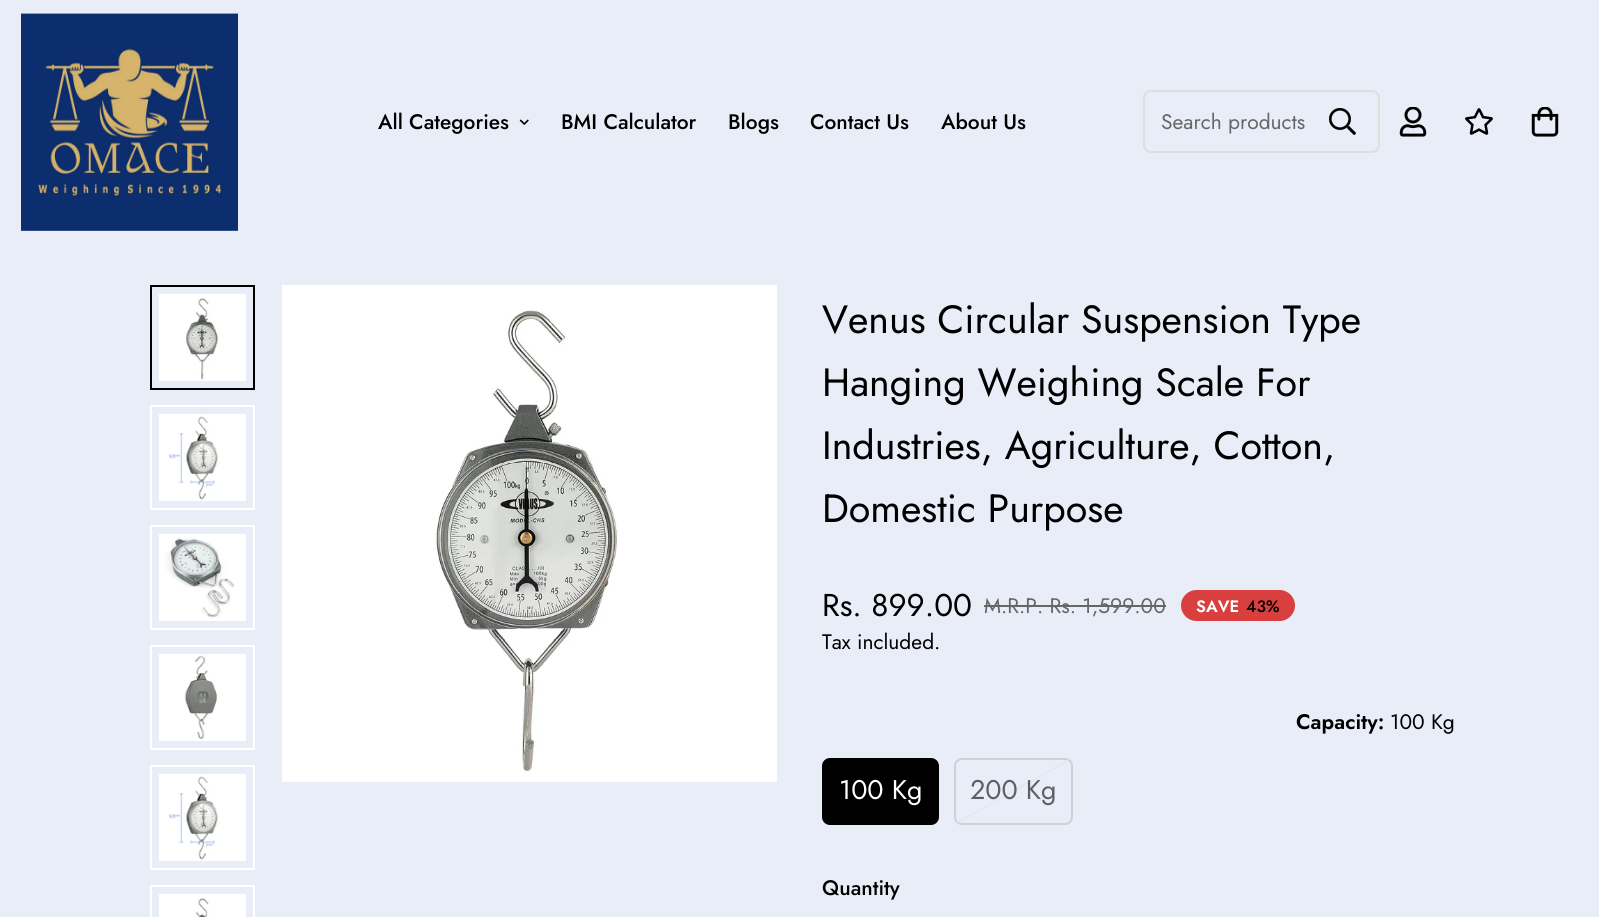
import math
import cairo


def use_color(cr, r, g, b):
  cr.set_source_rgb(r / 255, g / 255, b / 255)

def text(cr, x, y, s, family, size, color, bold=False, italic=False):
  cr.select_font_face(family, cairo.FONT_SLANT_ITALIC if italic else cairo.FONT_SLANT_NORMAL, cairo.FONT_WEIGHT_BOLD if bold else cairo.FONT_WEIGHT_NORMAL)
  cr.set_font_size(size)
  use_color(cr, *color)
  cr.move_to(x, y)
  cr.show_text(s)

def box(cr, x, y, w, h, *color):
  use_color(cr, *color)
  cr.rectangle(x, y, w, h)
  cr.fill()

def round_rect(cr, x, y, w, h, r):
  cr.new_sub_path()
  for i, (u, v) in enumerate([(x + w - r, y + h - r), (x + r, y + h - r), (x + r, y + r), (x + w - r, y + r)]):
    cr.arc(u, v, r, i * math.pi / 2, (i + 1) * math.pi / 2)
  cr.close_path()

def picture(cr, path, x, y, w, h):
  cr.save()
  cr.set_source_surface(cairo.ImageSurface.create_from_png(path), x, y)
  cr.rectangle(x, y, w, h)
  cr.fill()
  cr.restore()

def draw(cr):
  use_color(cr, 233, 237, 248)
  cr.paint()
  picture(cr, "img_01.png", 21, 13, 217, 218)
  picture(cr, "img_02.png", 519, 119, 10, 6)
  round_rect(cr, 1144, 91, 235, 61, 7)
  use_color(cr, 222, 222, 222)
  cr.stroke()
  picture(cr, "img_03.png", 1329, 108, 27, 27)
  picture(cr, "img_04.png", 1399, 107, 28, 30)
  picture(cr, "img_05.png", 1465, 108, 28, 27)
  picture(cr, "img_06.png", 1531, 107, 28, 30)
  cr.rectangle(151, 286, 103, 103)
  use_color(cr, 0, 0, 0)
  cr.stroke()
  picture(cr, "img_07.png", 159, 294, 87, 87)
  cr.rectangle(151, 406, 103, 103)
  use_color(cr, 255, 255, 255)
  cr.stroke()
  picture(cr, "img_08.png", 159, 414, 87, 87)
  cr.rectangle(151, 526, 103, 103)
  cr.stroke()
  picture(cr, "img_09.png", 159, 534, 87, 87)
  cr.rectangle(151, 646, 103, 103)
  cr.stroke()
  picture(cr, "img_10.png", 159, 654, 87, 87)
  cr.rectangle(151, 766, 103, 103)
  cr.stroke()
  picture(cr, "img_08.png", 159, 774, 87, 87)
  cr.rectangle(151, 886, 103, 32)
  cr.stroke()
  picture(cr, "img_11.png", 159, 894, 87, 23)
  picture(cr, "img_12.png", 282, 285, 495, 497)
  box(cr, 984, 605, 182, 2, 102, 102, 102)
  use_color(cr, 218, 63, 63)
  round_rect(cr, 1181, 590, 114, 31, 15.5)
  cr.fill()
  use_color(cr, 0, 0, 0)
  round_rect(cr, 823, 759, 115, 65, 7)
  cr.fill_preserve()
  cr.stroke()
  round_rect(cr, 955, 759, 117, 65, 7)
  use_color(cr, 207, 208, 213)
  cr.stroke()
  gradient = cairo.LinearGradient(986, 742, 1041, 840)
  gradient.add_color_stop_rgba(0.49, 0.886, 0.894, 0.91, 0)
  gradient.add_color_stop_rgba(0.5, 0.886, 0.894, 0.91, 1)
  gradient.add_color_stop_rgba(0.51, 0.886, 0.894, 0.91, 0)
  cr.set_source(gradient)
  cr.rectangle(956, 759, 115, 65)
  cr.fill()
  text(cr, 378, 129, "All Categories", "Jost Medium", 21, (0, 0, 0))
  text(cr, 561, 129, "BMI Calculator", "Jost Medium", 21, (0, 0, 0))
  text(cr, 728, 129, "Blogs", "Jost Medium", 21, (0, 0, 0))
  text(cr, 810, 129, "Contact Us", "Jost Medium", 21, (0, 0, 0))
  text(cr, 941, 129, "About Us", "Jost Medium", 21, (0, 0, 0))
  text(cr, 1161, 129, "Search products", "Jost", 21, (102, 102, 102))
  text(cr, 822, 333, "Venus Circular Suspension Type", "Jost", 39.4, (0, 0, 0))
  text(cr, 822, 396, "Hanging Weighing Scale For", "Jost", 39.4, (0, 0, 0))
  text(cr, 822, 459, "Industries, Agriculture, Cotton,", "Jost", 39.4, (0, 0, 0))
  text(cr, 822, 522, "Domestic Purpose", "Jost", 39.4, (0, 0, 0))
  text(cr, 822, 616, "Rs. 899.00", "Jost", 31.5, (0, 0, 0))
  text(cr, 984, 613, "M.R.P. Rs. 1,599.00", "Jost", 21, (102, 102, 102))
  text(cr, 1196, 612, "SAVE", "Jost SemiBold", 16.5, (255, 255, 255))
  text(cr, 1246, 612, "43%", "Jost Medium", 16.5, (0, 0, 0))
  text(cr, 822, 649, "Tax included.", "Jost", 21, (0, 0, 0))
  text(cr, 1296, 729, "Capacity:", "Jost SemiBold", 21, (0, 0, 0))
  text(cr, 1390, 729, "100 Kg", "Jost", 21, (0, 0, 0))
  text(cr, 839, 799, "100 Kg", "Jost", 27, (255, 255, 255))
  text(cr, 970, 799, "200 Kg", "Jost", 27, (93, 95, 99))
  text(cr, 822, 895, "Quantity", "Jost Medium", 21, (0, 0, 0))


surface = cairo.ImageSurface(cairo.FORMAT_RGB24, 1599, 917)
cr = cairo.Context(surface)
options = cairo.FontOptions()
options.set_hint_metrics(cairo.HINT_METRICS_OFF)
options.set_hint_style(cairo.HINT_STYLE_NONE)
cr.set_font_options(options)
cr.set_miter_limit(4)
draw(cr)
surface.write_to_png("out.png")
